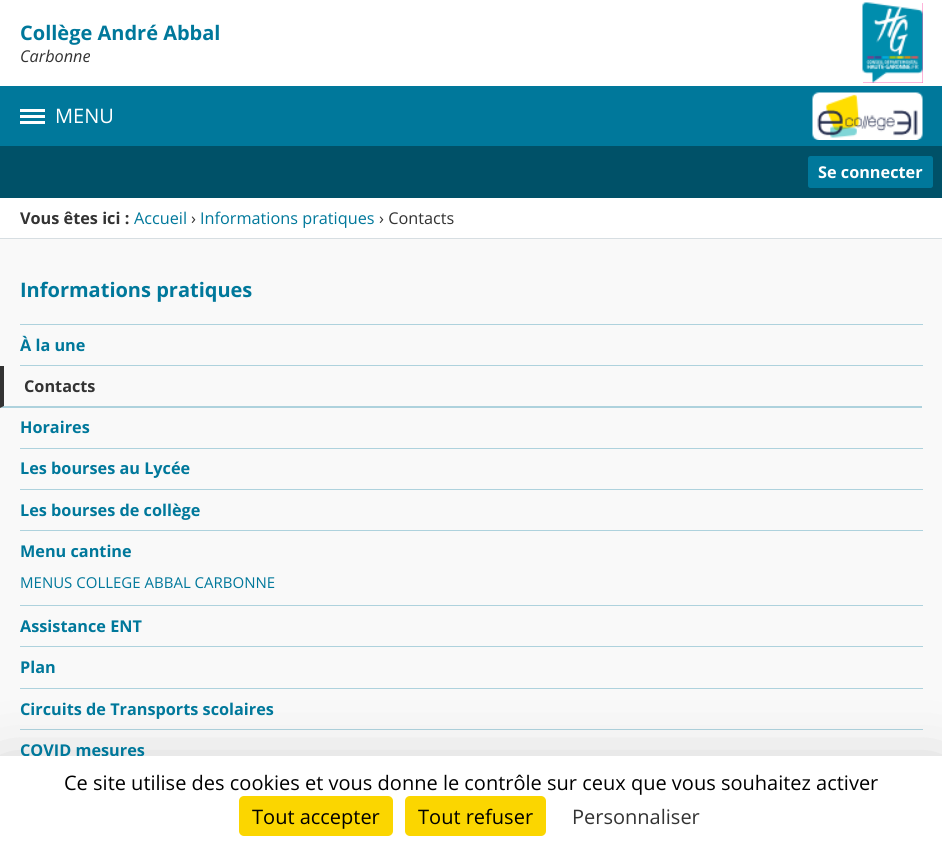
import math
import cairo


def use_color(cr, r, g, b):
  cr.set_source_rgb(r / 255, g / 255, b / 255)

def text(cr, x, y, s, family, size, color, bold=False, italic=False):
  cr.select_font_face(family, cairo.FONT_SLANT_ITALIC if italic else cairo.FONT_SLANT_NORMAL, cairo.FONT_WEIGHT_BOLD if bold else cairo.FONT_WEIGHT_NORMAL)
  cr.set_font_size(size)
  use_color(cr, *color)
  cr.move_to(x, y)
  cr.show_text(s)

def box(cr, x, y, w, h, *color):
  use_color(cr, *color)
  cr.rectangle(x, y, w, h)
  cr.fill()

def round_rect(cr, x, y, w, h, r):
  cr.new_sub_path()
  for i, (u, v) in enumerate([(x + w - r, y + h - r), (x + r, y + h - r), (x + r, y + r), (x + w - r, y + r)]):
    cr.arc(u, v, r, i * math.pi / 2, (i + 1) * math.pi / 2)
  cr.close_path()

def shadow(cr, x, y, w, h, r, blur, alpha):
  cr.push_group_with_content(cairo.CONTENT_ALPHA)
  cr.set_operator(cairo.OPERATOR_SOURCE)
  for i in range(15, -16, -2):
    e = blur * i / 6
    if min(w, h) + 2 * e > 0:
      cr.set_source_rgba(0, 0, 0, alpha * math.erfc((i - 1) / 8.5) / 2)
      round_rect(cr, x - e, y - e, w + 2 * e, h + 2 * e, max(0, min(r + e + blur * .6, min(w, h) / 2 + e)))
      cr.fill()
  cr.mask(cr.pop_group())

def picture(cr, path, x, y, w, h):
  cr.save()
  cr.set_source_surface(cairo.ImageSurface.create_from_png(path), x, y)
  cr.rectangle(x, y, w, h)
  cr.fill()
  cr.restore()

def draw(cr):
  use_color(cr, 255, 255, 255)
  cr.paint()
  box(cr, 863, 3, 60, 80, 255, 105, 180)
  picture(cr, "img_01.png", 862, 2, 61, 81)
  box(cr, 0, 86, 942, 60, 0, 120, 155)
  box(cr, 20, 109, 25, 3, 255, 255, 255)
  box(cr, 20, 115, 25, 3, 255, 255, 255)
  box(cr, 20, 121, 25, 3, 255, 255, 255)
  box(cr, 0, 146, 942, 52, 0, 81, 104)
  picture(cr, "img_02.png", 812, 92, 111, 48)
  use_color(cr, 0, 120, 155)
  round_rect(cr, 808, 156, 125, 32, 2.5)
  cr.fill()
  box(cr, 0, 238, 942, 1, 215, 222, 226)
  box(cr, 0, 239, 942, 517, 249, 249, 249)
  box(cr, 20, 324, 903, 1, 174, 210, 221)
  box(cr, 20, 365, 903, 1, 174, 210, 221)
  cr.new_path()
  cr.move_to(922, 408)
  cr.line_to(0, 408)
  cr.line_to(4, 406)
  cr.line_to(922, 406)
  cr.close_path()
  cr.fill()
  use_color(cr, 51, 51, 51)
  cr.new_path()
  cr.move_to(0, 408)
  cr.line_to(0, 366)
  cr.line_to(4, 366)
  cr.line_to(4, 406)
  cr.close_path()
  cr.fill()
  box(cr, 20, 448, 903, 1, 174, 210, 221)
  box(cr, 20, 489, 903, 1, 174, 210, 221)
  box(cr, 20, 530, 903, 1, 174, 210, 221)
  box(cr, 20, 605, 903, 1, 174, 210, 221)
  box(cr, 20, 646, 903, 1, 174, 210, 221)
  box(cr, 20, 688, 903, 1, 174, 210, 221)
  box(cr, 20, 729, 903, 1, 174, 210, 221)
  use_color(cr, 0, 0, 0)
  shadow(cr, 0, 781, 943, 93, 0, 37.5, 0.25)
  text(cr, 20, 40, "Collège André Abbal", "Open Sans", 20, (0, 120, 155), bold=True)
  text(cr, 20, 62, "Carbonne", "Open Sans", 16.25, (51, 51, 51), italic=True)
  text(cr, 55, 123, "MENU", "Open Sans", 20, (255, 255, 255))
  text(cr, 818, 178, "Se connecter", "Open Sans", 16.25, (255, 255, 255), bold=True)
  text(cr, 20, 224, "Vous êtes ici :", "Open Sans", 16.25, (51, 51, 51), bold=True)
  text(cr, 134, 224, "Accueil", "Open Sans", 16.25, (0, 120, 155))
  text(cr, 191, 224, "›", "Open Sans", 16.25, (51, 51, 51))
  text(cr, 200, 224, "Informations pratiques", "Open Sans", 16.25, (0, 120, 155))
  text(cr, 379, 224, "› Contacts", "Open Sans", 16.25, (51, 51, 51))
  text(cr, 20, 297, "Informations pratiques", "Open Sans", 20, (0, 120, 155), bold=True)
  text(cr, 20, 351, "À la une", "Open Sans", 16.25, (0, 120, 155), bold=True)
  text(cr, 24, 392, "Contacts", "Open Sans", 16.25, (51, 51, 51), bold=True)
  text(cr, 20, 433, "Horaires", "Open Sans", 16.25, (0, 120, 155), bold=True)
  text(cr, 20, 474, "Les bourses au Lycée", "Open Sans", 16.25, (0, 120, 155), bold=True)
  text(cr, 20, 516, "Les bourses de collège", "Open Sans", 16.25, (0, 120, 155), bold=True)
  text(cr, 20, 557, "Menu cantine", "Open Sans", 16.25, (0, 120, 155), bold=True)
  text(cr, 20, 588, "MENUS COLLEGE ABBAL CARBONNE", "Open Sans", 15, (0, 120, 155))
  text(cr, 20, 632, "Assistance ENT", "Open Sans", 16.25, (0, 120, 155), bold=True)
  text(cr, 20, 673, "Plan", "Open Sans", 16.25, (0, 120, 155), bold=True)
  text(cr, 20, 715, "Circuits de Transports scolaires", "Open Sans", 16.25, (0, 120, 155), bold=True)
  text(cr, 20, 756, "COVID mesures", "Open Sans", 16.25, (0, 120, 155), bold=True)
  box(cr, 0, 756, 942, 92, 255, 255, 255)
  text(cr, 64, 790, "Ce site utilise des cookies et vous donne le contrôle sur ceux que vous souhaitez activer", "Open Sans", 20, (0, 0, 0))
  use_color(cr, 251, 214, 0)
  round_rect(cr, 239, 796, 154, 40, 5)
  cr.fill()
  text(cr, 252, 824, "Tout accepter", "Open Sans", 20, (0, 0, 0))
  use_color(cr, 251, 214, 0)
  round_rect(cr, 405, 796, 141, 40, 5)
  cr.fill()
  text(cr, 418, 824, "Tout refuser", "Open Sans", 20, (0, 0, 0))
  text(cr, 572, 824, "Personnaliser", "Open Sans", 20, (51, 51, 51))


surface = cairo.ImageSurface(cairo.FORMAT_RGB24, 942, 848)
cr = cairo.Context(surface)
options = cairo.FontOptions()
options.set_hint_metrics(cairo.HINT_METRICS_OFF)
options.set_hint_style(cairo.HINT_STYLE_NONE)
cr.set_font_options(options)
cr.set_miter_limit(4)
draw(cr)
surface.write_to_png("out.png")
